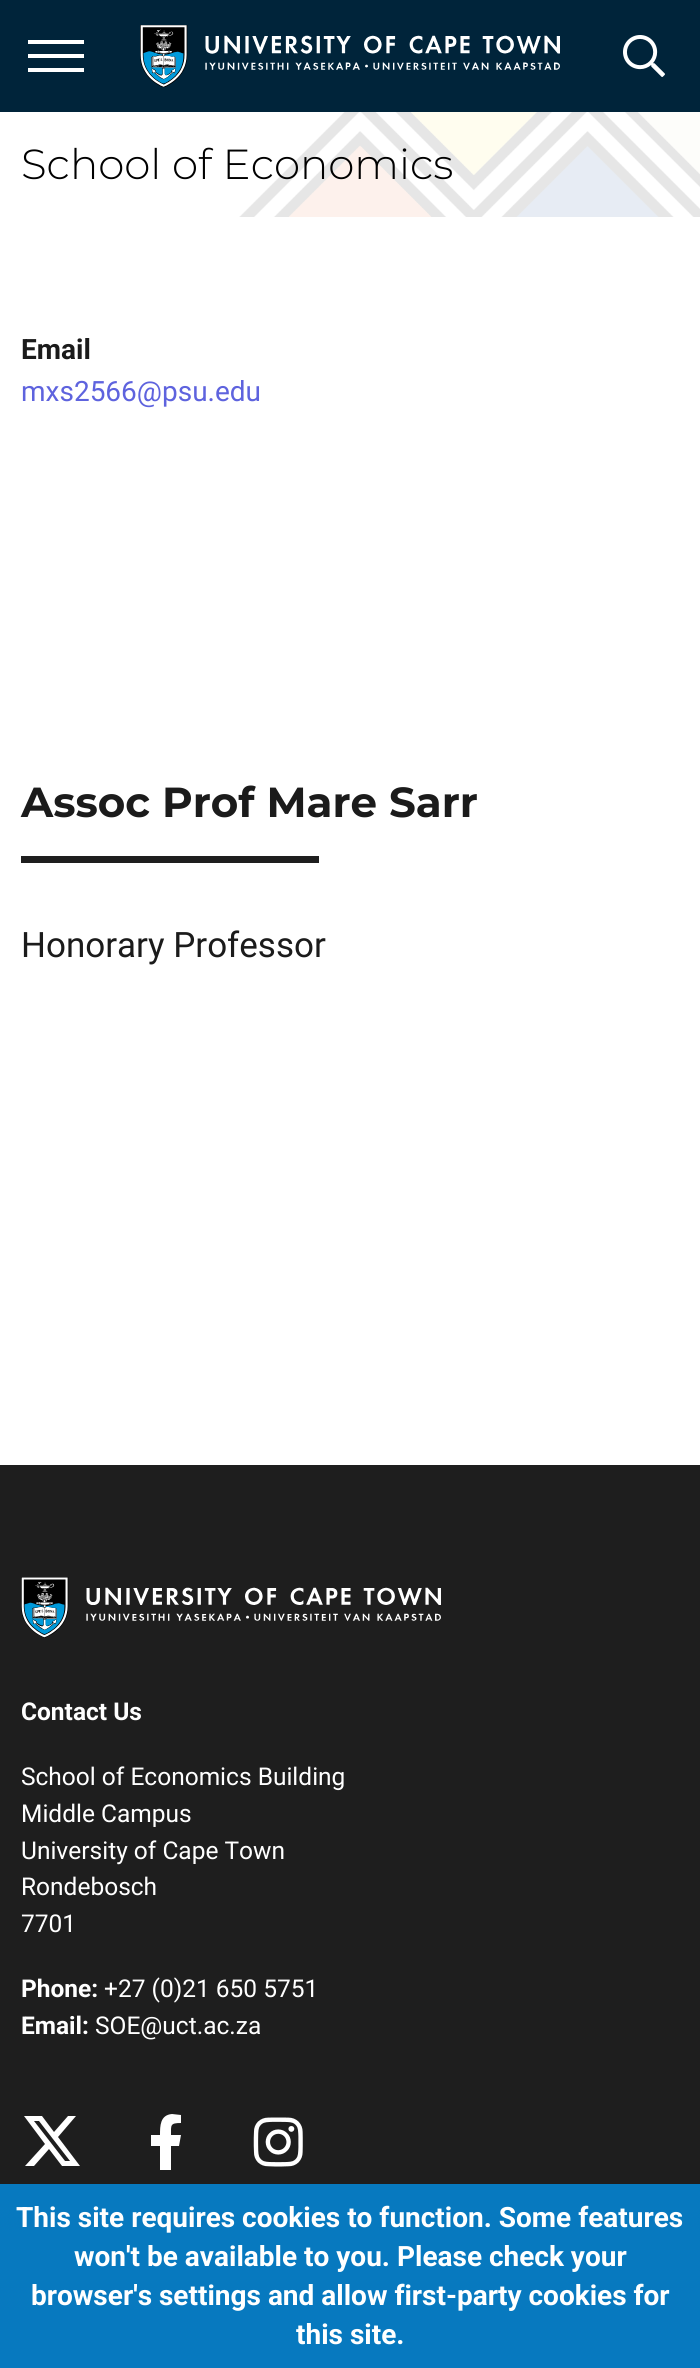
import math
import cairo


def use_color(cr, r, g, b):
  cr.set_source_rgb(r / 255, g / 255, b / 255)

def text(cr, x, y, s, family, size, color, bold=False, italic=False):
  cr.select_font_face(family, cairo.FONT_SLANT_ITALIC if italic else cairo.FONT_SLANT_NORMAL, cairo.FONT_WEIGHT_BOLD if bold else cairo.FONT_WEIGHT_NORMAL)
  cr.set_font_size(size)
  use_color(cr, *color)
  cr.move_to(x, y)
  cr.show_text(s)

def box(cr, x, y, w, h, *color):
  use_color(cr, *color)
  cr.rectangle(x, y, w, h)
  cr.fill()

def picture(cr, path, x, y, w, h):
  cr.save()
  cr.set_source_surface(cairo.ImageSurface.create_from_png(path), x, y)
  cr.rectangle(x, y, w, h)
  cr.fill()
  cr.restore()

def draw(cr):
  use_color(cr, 255, 255, 255)
  cr.paint()
  box(cr, 0, 0, 700, 112, 0, 36, 58)
  box(cr, 28, 40, 56, 4, 255, 255, 255)
  box(cr, 28, 54, 56, 4, 255, 255, 255)
  box(cr, 28, 68, 56, 4, 255, 255, 255)
  picture(cr, "img_01.png", 140, 25, 420, 63)
  picture(cr, "img_02.png", 623, 35, 42, 42)
  picture(cr, "img_03.png", 239, 112, 461, 105)
  box(cr, 21, 856, 298, 7, 30, 30, 30)
  box(cr, 0, 1465, 700, 719, 30, 30, 30)
  picture(cr, "img_04.png", 21, 1577, 420, 61)
  use_color(cr, 255, 255, 255)
  cr.new_path()
  cr.move_to(68, 2116)
  cr.line_to(76, 2116)
  cr.line_to(58, 2137)
  cr.line_to(80, 2166)
  cr.line_to(62, 2166)
  cr.line_to(49, 2149)
  cr.line_to(34, 2166)
  cr.line_to(25, 2166)
  cr.line_to(45, 2144)
  cr.line_to(24, 2116)
  cr.line_to(42, 2116)
  cr.line_to(54, 2132)
  cr.close_path()
  cr.move_to(65, 2161)
  cr.line_to(70, 2161)
  cr.line_to(39, 2121)
  cr.line_to(34, 2121)
  cr.close_path()
  cr.fill()
  cr.new_path()
  cr.move_to(179, 2146)
  cr.line_to(181, 2135)
  cr.line_to(171, 2135)
  cr.curve_to(171, 2125, 170, 2123, 181, 2123)
  cr.line_to(181, 2115)
  cr.line_to(172, 2114)
  cr.curve_to(160, 2115, 160, 2126, 160, 2135)
  cr.line_to(151, 2135)
  cr.line_to(151, 2146)
  cr.line_to(160, 2146)
  cr.line_to(160, 2170)
  cr.line_to(171, 2170)
  cr.line_to(171, 2146)
  cr.close_path()
  cr.fill()
  picture(cr, "img_05.png", 253, 2117, 50, 50)
  box(cr, 0, 2184, 700, 184, 7, 121, 191)
  text(cr, 21, 179, "School of Economics", "Montserrat Light", 42, (0, 0, 0))
  text(cr, 21, 359, "Email", "Roboto", 28, (27, 27, 27), bold=True)
  text(cr, 21, 401, "mxs2566@psu.edu", "Roboto", 28, (94, 99, 222))
  text(cr, 21, 817, "Assoc Prof Mare Sarr", "Montserrat", 42, (27, 27, 27), bold=True)
  text(cr, 21, 957, "Honorary Professor", "Roboto", 35, (27, 27, 27))
  text(cr, 21, 1720, "Contact Us", "Roboto", 24.5, (255, 255, 255), bold=True)
  text(cr, 21, 1785, "School of Economics Building", "Roboto", 24.5, (255, 255, 255))
  text(cr, 21, 1822, "Middle Campus", "Roboto", 24.5, (255, 255, 255))
  text(cr, 21, 1859, "University of Cape Town", "Roboto", 24.5, (255, 255, 255))
  text(cr, 21, 1895, "Rondebosch", "Roboto", 24.5, (255, 255, 255))
  text(cr, 21, 1932, "7701", "Roboto", 24.5, (255, 255, 255))
  text(cr, 21, 1997, "Phone:", "Roboto", 24.5, (255, 255, 255), bold=True)
  text(cr, 104, 1997, "+27 (0)21 650 5751", "Roboto", 24.5, (255, 255, 255))
  text(cr, 21, 2034, "Email:", "Roboto", 24.5, (255, 255, 255), bold=True)
  text(cr, 95, 2034, "SOE@uct.ac.za", "Roboto", 24.5, (255, 255, 255))
  text(cr, 16, 2227, "This site requires cookies to function. Some features", "Roboto", 28, (255, 255, 255), bold=True)
  text(cr, 74, 2266, "won't be available to you. Please check your", "Roboto", 28, (255, 255, 255), bold=True)
  text(cr, 31, 2305, "browser's settings and allow first-party cookies for", "Roboto", 28, (255, 255, 255), bold=True)
  text(cr, 296, 2344, "this site.", "Roboto", 28, (255, 255, 255), bold=True)


surface = cairo.ImageSurface(cairo.FORMAT_RGB24, 700, 2368)
cr = cairo.Context(surface)
options = cairo.FontOptions()
options.set_hint_metrics(cairo.HINT_METRICS_OFF)
options.set_hint_style(cairo.HINT_STYLE_NONE)
cr.set_font_options(options)
cr.set_miter_limit(4)
draw(cr)
surface.write_to_png("out.png")
